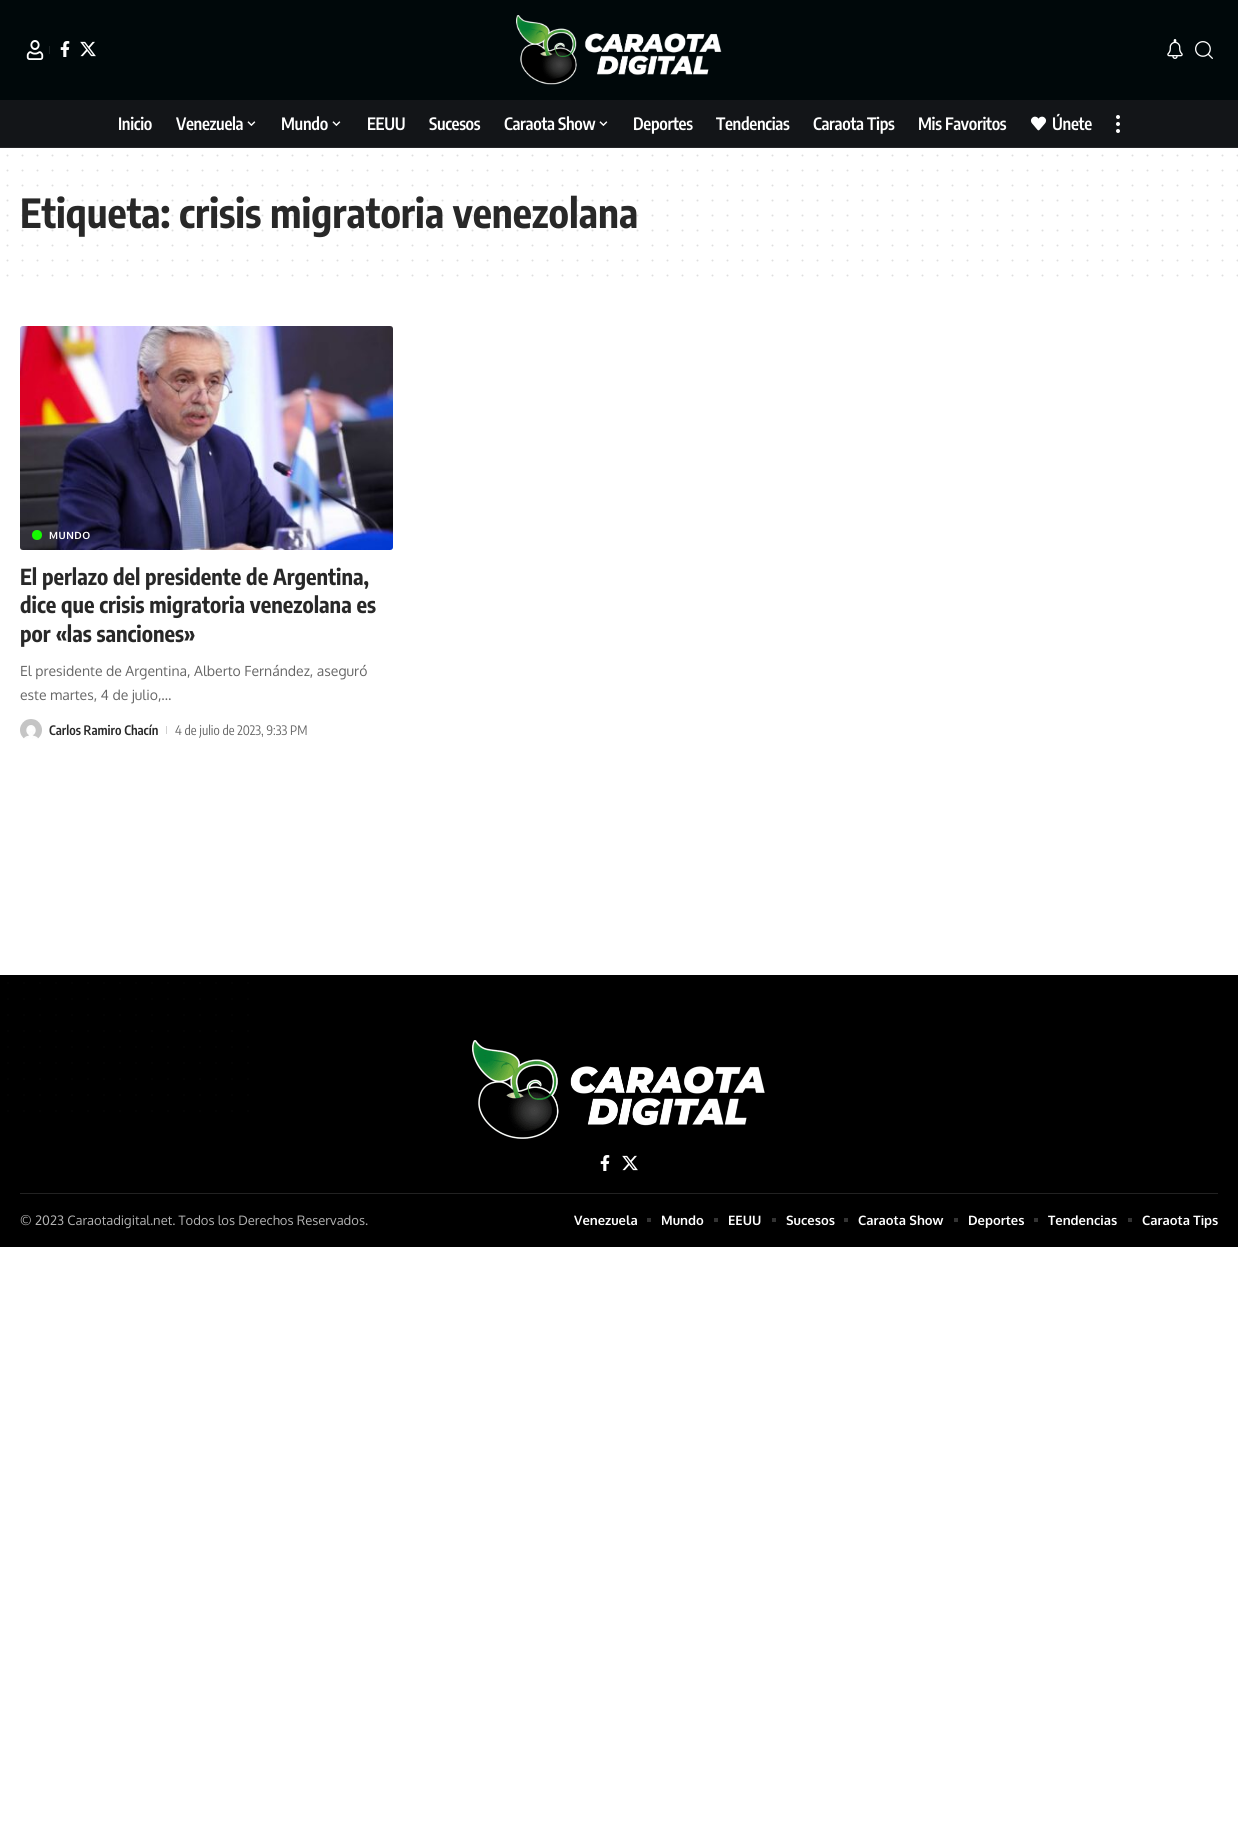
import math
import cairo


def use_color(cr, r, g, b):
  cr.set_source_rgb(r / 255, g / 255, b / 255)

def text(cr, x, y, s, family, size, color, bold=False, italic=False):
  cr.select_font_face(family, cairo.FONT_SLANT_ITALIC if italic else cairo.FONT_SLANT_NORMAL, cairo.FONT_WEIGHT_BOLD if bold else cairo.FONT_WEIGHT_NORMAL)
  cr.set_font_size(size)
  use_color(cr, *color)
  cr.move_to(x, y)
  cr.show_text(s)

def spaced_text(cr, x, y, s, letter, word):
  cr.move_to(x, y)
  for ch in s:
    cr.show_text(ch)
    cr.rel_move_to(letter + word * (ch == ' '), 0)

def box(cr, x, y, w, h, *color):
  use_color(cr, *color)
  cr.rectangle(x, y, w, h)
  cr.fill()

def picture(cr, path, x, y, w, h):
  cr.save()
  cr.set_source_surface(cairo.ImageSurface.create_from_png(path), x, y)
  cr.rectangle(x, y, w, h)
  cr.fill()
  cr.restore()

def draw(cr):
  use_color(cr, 255, 255, 255)
  cr.paint()
  box(cr, 0, 0, 1238, 100, 0, 8, 10)
  picture(cr, "img_01.png", 26, 40, 18, 20)
  box(cr, 49, 46, 1, 8, 26, 33, 35)
  picture(cr, "img_02.png", 60, 41, 10, 16)
  picture(cr, "img_03.png", 80, 41, 16, 16)
  picture(cr, "img_04.png", 516, 15, 206, 70)
  picture(cr, "img_05.png", 1167, 39, 16, 20)
  picture(cr, "img_06.png", 1195, 41, 18, 18)
  box(cr, 0, 100, 1238, 47, 19, 21, 24)
  picture(cr, "img_07.png", 247, 121, 9, 5)
  picture(cr, "img_07.png", 332, 121, 9, 5)
  picture(cr, "img_07.png", 599, 121, 9, 5)
  picture(cr, "img_08.png", 1030, 116, 17, 15)
  use_color(cr, 255, 255, 255)
  cr.arc(1118, 117, 2, 0, 2 * math.pi)
  cr.fill()
  cr.arc(1118, 124, 2, 0, 2 * math.pi)
  cr.fill()
  cr.arc(1118, 131, 2, 0, 2 * math.pi)
  cr.fill()
  box(cr, 0, 147, 1238, 1, 37, 38, 41)
  cr.new_path()
  cr.move_to(7.5, 155.5)
  cr.line_to(1237.7, 155.5)
  use_color(cr, 223, 223, 223)
  cr.set_line_cap(cairo.LINE_CAP_ROUND)
  cr.set_dash([0, 15])
  cr.stroke()
  cr.new_path()
  cr.move_to(7.5, 170.5)
  cr.line_to(1237.7, 170.5)
  cr.stroke()
  cr.new_path()
  cr.move_to(7.5, 185.5)
  cr.line_to(1237.7, 185.5)
  cr.stroke()
  cr.new_path()
  cr.move_to(7.5, 245.5)
  cr.line_to(1237.7, 245.5)
  cr.stroke()
  cr.new_path()
  cr.move_to(7.5, 260.5)
  cr.line_to(1237.7, 260.5)
  cr.stroke()
  cr.new_path()
  cr.move_to(7.5, 275.5)
  cr.line_to(1237.7, 275.5)
  cr.stroke()
  picture(cr, "img_09.png", 20, 326, 373, 224)
  use_color(cr, 21, 252, 0)
  cr.arc(37, 535, 5, 0, 2 * math.pi)
  cr.fill()
  picture(cr, "img_10.png", 20, 719, 22, 20)
  box(cr, 166, 726, 1, 8, 209, 209, 209)
  box(cr, 0, 975, 1238, 272, 0, 0, 0)
  cr.new_path()
  cr.move_to(8, 983)
  cr.line_to(248.2, 983)
  use_color(cr, 8, 8, 8)
  cr.set_line_width(1.5)
  cr.set_dash([0, 16])
  cr.stroke()
  cr.new_path()
  cr.move_to(8, 999)
  cr.line_to(248.2, 999)
  cr.stroke()
  cr.new_path()
  cr.move_to(8, 1015)
  cr.line_to(248.2, 1015)
  cr.stroke()
  cr.new_path()
  cr.move_to(8, 1031)
  cr.line_to(248.2, 1031)
  cr.stroke()
  cr.new_path()
  cr.move_to(8, 1047)
  cr.line_to(248.2, 1047)
  cr.stroke()
  cr.new_path()
  cr.move_to(8, 1063)
  cr.line_to(248.2, 1063)
  cr.stroke()
  cr.new_path()
  cr.move_to(8, 1079)
  cr.line_to(248.2, 1079)
  cr.stroke()
  cr.new_path()
  cr.move_to(8, 1095)
  cr.line_to(248.2, 1095)
  cr.stroke()
  cr.new_path()
  cr.move_to(8, 1111)
  cr.line_to(248.2, 1111)
  cr.stroke()
  picture(cr, "img_11.png", 472, 1040, 293, 99)
  picture(cr, "img_12.png", 600, 1155, 10, 16)
  picture(cr, "img_13.png", 622, 1155, 16, 16)
  box(cr, 20, 1193, 1198, 1, 34, 34, 34)
  box(cr, 647, 1218, 4, 4, 51, 51, 51)
  box(cr, 714, 1218, 4, 4, 51, 51, 51)
  box(cr, 772, 1218, 4, 4, 51, 51, 51)
  box(cr, 844, 1218, 4, 4, 51, 51, 51)
  box(cr, 954, 1218, 4, 4, 51, 51, 51)
  box(cr, 1034, 1218, 4, 4, 51, 51, 51)
  box(cr, 1128, 1218, 4, 4, 51, 51, 51)
  cr.select_font_face("Encode Sans Condensed SemiBold")
  cr.set_font_size(17)
  use_color(cr, 255, 255, 255)
  spaced_text(cr, 118, 130, "Inicio", -0.3, 0)
  spaced_text(cr, 176, 130, "Venezuela", -0.3, 0)
  spaced_text(cr, 281, 130, "Mundo", -0.3, 0)
  spaced_text(cr, 367, 130, "EEUU", -0.3, 0)
  spaced_text(cr, 429, 130, "Sucesos", -0.3, 0)
  spaced_text(cr, 504, 130, "Caraota Show", -0.3, 0)
  spaced_text(cr, 633, 130, "Deportes", -0.3, 0)
  spaced_text(cr, 716, 130, "Tendencias", -0.3, 0)
  spaced_text(cr, 813, 130, "Caraota Tips", -0.3, 0)
  spaced_text(cr, 918, 130, "Mis Favoritos", -0.3, 0)
  spaced_text(cr, 1052, 130, "Únete", -0.3, 0)
  text(cr, 20, 228, "Etiqueta: crisis migratoria venezolana", "Encode Sans Condensed", 40, (40, 40, 40), bold=True)
  cr.new_path()
  cr.move_to(7.5, 230.5)
  cr.line_to(1237.7, 230.5)
  cr.set_source_rgba(0.157, 0.157, 0.157, 0.15)
  cr.set_line_width(2)
  cr.set_dash([0, 15])
  cr.stroke()
  cr.new_path()
  cr.move_to(7.5, 215.5)
  cr.line_to(1237.7, 215.5)
  cr.stroke()
  cr.new_path()
  cr.move_to(7.5, 200.5)
  cr.line_to(1237.7, 200.5)
  cr.stroke()
  cr.select_font_face("Oxygen", cairo.FONT_SLANT_NORMAL, cairo.FONT_WEIGHT_BOLD)
  cr.set_font_size(10)
  use_color(cr, 255, 255, 255)
  spaced_text(cr, 49, 539, "MUNDO", 0.5, 0)
  text(cr, 20, 585, "El perlazo del presidente de Argentina,", "Encode Sans Condensed", 22, (40, 40, 40), bold=True)
  text(cr, 20, 613, "dice que crisis migratoria venezolana es", "Encode Sans Condensed", 22, (40, 40, 40), bold=True)
  text(cr, 20, 642, "por «las sanciones»", "Encode Sans Condensed", 22, (40, 40, 40), bold=True)
  text(cr, 20, 676, "El presidente de Argentina, Alberto Fernández, aseguró", "Oxygen", 14, (102, 102, 102))
  text(cr, 20, 700, "este martes, 4 de julio,…", "Oxygen", 14, (102, 102, 102))
  text(cr, 49, 735, "Carlos Ramiro Chacín", "Encode Sans Condensed SemiBold", 13, (40, 40, 40))
  text(cr, 175, 735, "4 de julio de 2023, 9:33 PM", "Encode Sans Condensed", 13, (102, 102, 102))
  text(cr, 20, 1225, "© 2023 Caraotadigital.net. Todos los Derechos Reservados.", "Oxygen", 13, (179, 179, 179))
  text(cr, 574, 1225, "Venezuela", "Oxygen", 13, (255, 255, 255), bold=True)
  text(cr, 661, 1225, "Mundo", "Oxygen", 13, (255, 255, 255), bold=True)
  text(cr, 728, 1225, "EEUU", "Oxygen", 13, (255, 255, 255), bold=True)
  text(cr, 786, 1225, "Sucesos", "Oxygen", 13, (255, 255, 255), bold=True)
  text(cr, 858, 1225, "Caraota Show", "Oxygen", 13, (255, 255, 255), bold=True)
  text(cr, 968, 1225, "Deportes", "Oxygen", 13, (255, 255, 255), bold=True)
  text(cr, 1048, 1225, "Tendencias", "Oxygen", 13, (255, 255, 255), bold=True)
  text(cr, 1142, 1225, "Caraota Tips", "Oxygen", 13, (255, 255, 255), bold=True)


surface = cairo.ImageSurface(cairo.FORMAT_RGB24, 1238, 1821)
cr = cairo.Context(surface)
options = cairo.FontOptions()
options.set_hint_metrics(cairo.HINT_METRICS_OFF)
options.set_hint_style(cairo.HINT_STYLE_NONE)
cr.set_font_options(options)
cr.set_miter_limit(4)
draw(cr)
surface.write_to_png("out.png")
